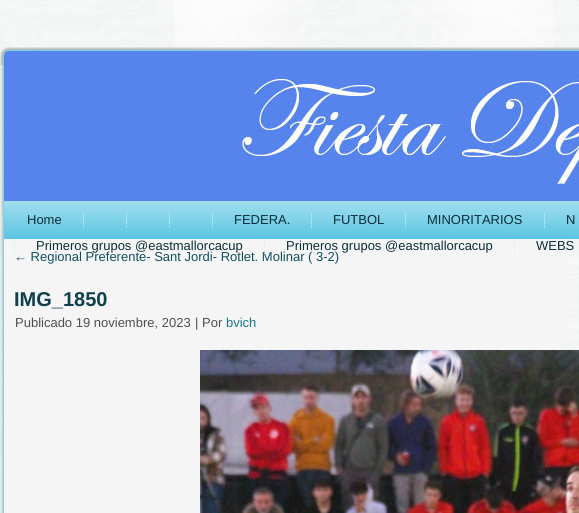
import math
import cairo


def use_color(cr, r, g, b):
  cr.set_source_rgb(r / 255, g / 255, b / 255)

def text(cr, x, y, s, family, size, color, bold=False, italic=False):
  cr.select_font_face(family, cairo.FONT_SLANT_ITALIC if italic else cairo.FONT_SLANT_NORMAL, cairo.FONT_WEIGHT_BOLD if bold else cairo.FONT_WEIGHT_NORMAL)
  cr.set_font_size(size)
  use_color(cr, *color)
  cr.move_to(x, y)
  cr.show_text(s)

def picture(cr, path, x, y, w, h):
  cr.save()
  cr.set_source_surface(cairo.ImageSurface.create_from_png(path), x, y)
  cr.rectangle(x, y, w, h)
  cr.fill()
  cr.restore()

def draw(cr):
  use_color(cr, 255, 255, 255)
  cr.paint()
  picture(cr, "img_01.png", 0, 0, 579, 513)
  picture(cr, "img_02.png", 174, 0, 380, 50)
  picture(cr, "img_03.png", 0, 47, 579, 18)
  picture(cr, "img_04.png", 0, 47, 579, 18)
  picture(cr, "img_07.png", 0, 65, 566, 448)
  picture(cr, "img_05.png", 4, 51, 575, 150)
  picture(cr, "img_06.png", 11, 53, 568, 146)
  picture(cr, "img_08.png", 4, 201, 575, 38)
  picture(cr, "img_09.png", 83, 213, 1, 15)
  picture(cr, "img_09.png", 126, 213, 1, 15)
  picture(cr, "img_09.png", 169, 213, 1, 15)
  picture(cr, "img_09.png", 212, 213, 1, 15)
  picture(cr, "img_09.png", 311, 213, 1, 15)
  picture(cr, "img_09.png", 405, 213, 1, 15)
  picture(cr, "img_09.png", 544, 213, 1, 15)
  picture(cr, "img_10.png", 14, 239, 1, 15)
  picture(cr, "img_10.png", 514, 239, 1, 15)
  picture(cr, "img_12.png", 200, 350, 379, 163)
  text(cr, 27, 224, "Home", "Liberation Sans", 13, (10, 46, 56))
  text(cr, 234, 224, "FEDERA.", "Liberation Sans", 13, (10, 46, 56))
  text(cr, 333, 224, "FUTBOL", "Liberation Sans", 13, (10, 46, 56))
  text(cr, 427, 224, "MINORITARIOS", "Liberation Sans", 13, (10, 46, 56))
  text(cr, 566, 224, "N", "Liberation Sans", 13, (10, 46, 56))
  text(cr, 36, 250, "Primeros grupos @eastmallorcacup", "Liberation Sans", 13, (10, 46, 56))
  text(cr, 286, 250, "Primeros grupos @eastmallorcacup", "Liberation Sans", 13, (10, 46, 56))
  text(cr, 536, 250, "WEBS", "Liberation Sans", 13, (10, 46, 56))
  text(cr, 14, 261, "← Regional Preferente- Sant Jordi- Rotlet. Molinar ( 3-2)", "Liberation Sans", 13, (17, 78, 95))
  picture(cr, "img_11.png", 264, 239, 1, 15)
  text(cr, 14, 306, "IMG_1850", "Liberation Sans", 20, (14, 64, 78), bold=True)
  text(cr, 15, 327, "Publicado 19 noviembre, 2023", "Liberation Sans", 13, (79, 79, 79))
  text(cr, 195, 327, "| Por", "Liberation Sans", 13, (79, 79, 79))
  text(cr, 226, 327, "bvich", "Liberation Sans", 13, (25, 118, 143))


surface = cairo.ImageSurface(cairo.FORMAT_RGB24, 579, 513)
cr = cairo.Context(surface)
options = cairo.FontOptions()
options.set_hint_metrics(cairo.HINT_METRICS_OFF)
options.set_hint_style(cairo.HINT_STYLE_NONE)
cr.set_font_options(options)
cr.set_miter_limit(4)
draw(cr)
surface.write_to_png("out.png")
